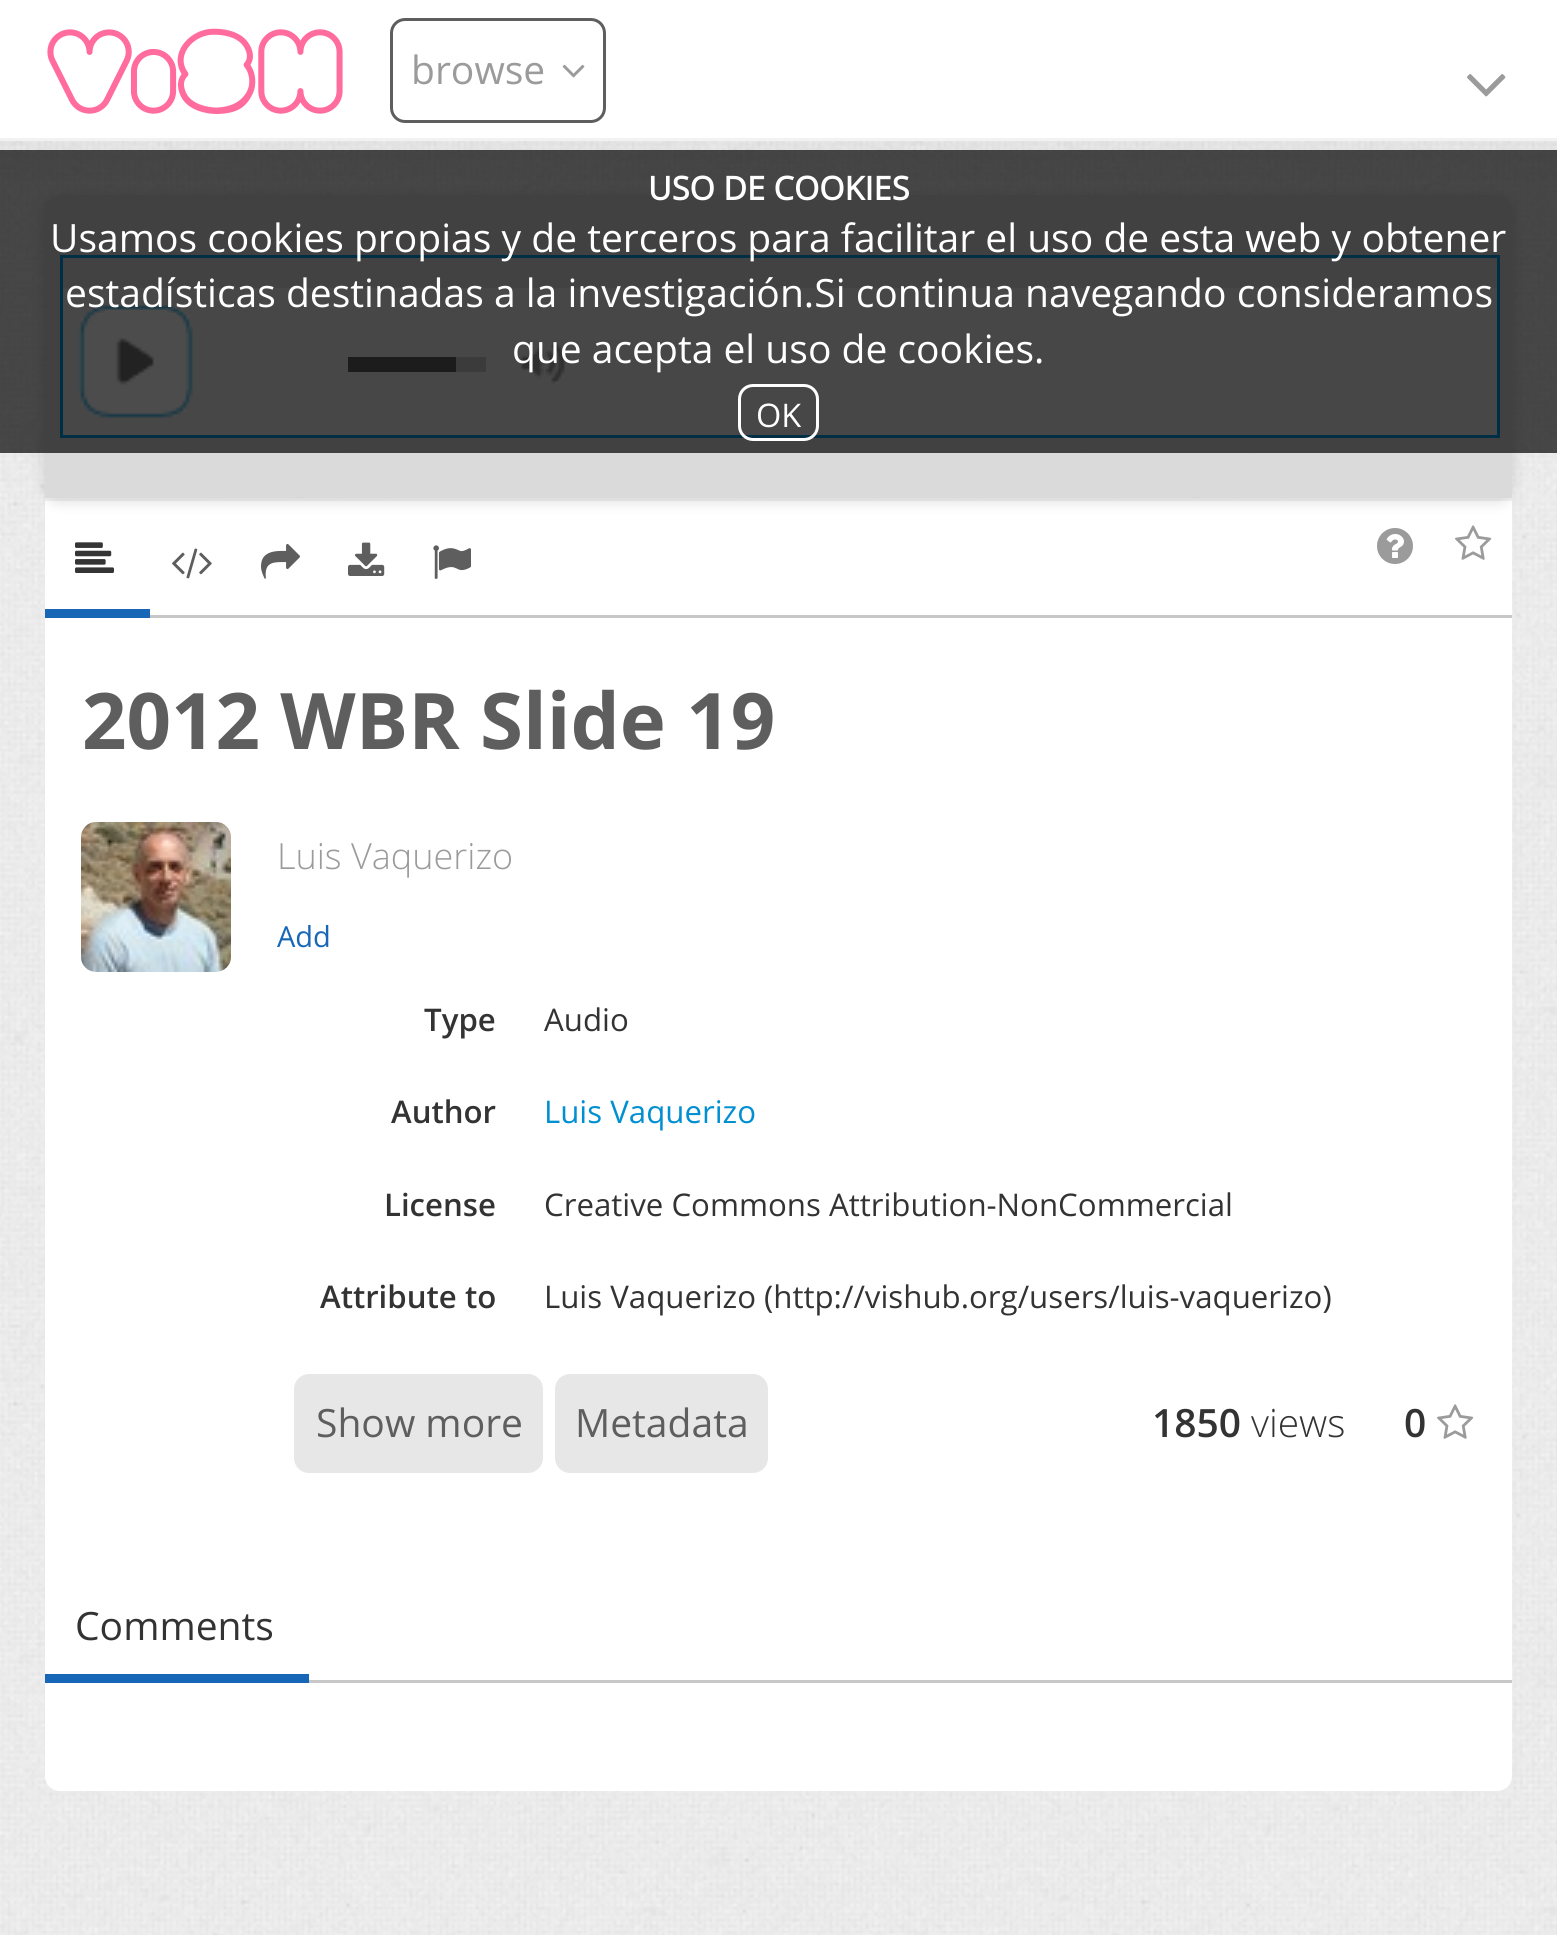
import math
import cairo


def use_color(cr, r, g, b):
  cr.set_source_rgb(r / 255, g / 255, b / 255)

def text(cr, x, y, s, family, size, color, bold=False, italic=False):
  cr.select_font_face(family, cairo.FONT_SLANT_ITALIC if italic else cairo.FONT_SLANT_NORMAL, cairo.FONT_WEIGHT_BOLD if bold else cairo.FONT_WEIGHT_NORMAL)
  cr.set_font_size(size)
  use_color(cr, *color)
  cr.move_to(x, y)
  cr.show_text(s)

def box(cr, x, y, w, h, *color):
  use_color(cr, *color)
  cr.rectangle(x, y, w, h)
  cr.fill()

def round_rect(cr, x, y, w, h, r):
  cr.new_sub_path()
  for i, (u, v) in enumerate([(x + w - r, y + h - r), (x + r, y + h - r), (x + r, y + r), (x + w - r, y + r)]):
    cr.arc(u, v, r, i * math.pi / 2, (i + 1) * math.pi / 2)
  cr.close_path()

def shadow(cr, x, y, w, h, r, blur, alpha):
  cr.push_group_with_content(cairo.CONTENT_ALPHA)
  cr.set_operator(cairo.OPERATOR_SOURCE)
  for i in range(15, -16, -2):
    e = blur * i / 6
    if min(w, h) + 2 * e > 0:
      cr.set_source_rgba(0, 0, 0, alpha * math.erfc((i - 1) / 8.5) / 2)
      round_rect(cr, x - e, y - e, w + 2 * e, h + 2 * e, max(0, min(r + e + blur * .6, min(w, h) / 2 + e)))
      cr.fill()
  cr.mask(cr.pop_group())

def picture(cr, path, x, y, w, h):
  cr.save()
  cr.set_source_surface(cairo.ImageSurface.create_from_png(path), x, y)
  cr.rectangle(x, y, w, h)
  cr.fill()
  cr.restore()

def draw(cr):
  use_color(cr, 255, 255, 255)
  cr.paint()
  picture(cr, "img_01.png", 0, 141, 1557, 1794)
  use_color(cr, 255, 255, 255)
  cr.new_path()
  cr.move_to(45, 498)
  cr.line_to(1512, 498)
  cr.line_to(1512, 1776)
  cr.curve_to(1512, 1784.5, 1505.5, 1791, 1497, 1791)
  cr.line_to(60, 1791)
  cr.curve_to(51.5, 1791, 45, 1784.5, 45, 1776)
  cr.close_path()
  cr.fill()
  box(cr, 45, 498, 1467, 3, 242, 242, 242)
  cr.save()
  cr.set_fill_rule(cairo.FILL_RULE_EVEN_ODD)
  cr.new_path()
  cr.move_to(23, 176)
  cr.line_to(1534, 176)
  cr.line_to(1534, 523)
  cr.line_to(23, 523)
  cr.close_path()
  cr.move_to(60, 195)
  cr.line_to(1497, 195)
  cr.curve_to(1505.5, 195, 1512, 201.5, 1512, 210)
  cr.line_to(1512, 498)
  cr.line_to(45, 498)
  cr.line_to(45, 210)
  cr.curve_to(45, 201.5, 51.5, 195, 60, 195)
  cr.close_path()
  cr.clip()
  use_color(cr, 0, 0, 0)
  shadow(cr, 42, 195, 1473, 309, 18, 6, 0.1)
  cr.restore()
  cr.set_source_rgba(0.847, 0.847, 0.847, 0.9)
  cr.new_path()
  cr.move_to(60, 195)
  cr.line_to(1497, 195)
  cr.curve_to(1505.5, 195, 1512, 201.5, 1512, 210)
  cr.line_to(1512, 498)
  cr.line_to(45, 498)
  cr.line_to(45, 210)
  cr.curve_to(45, 201.5, 51.5, 195, 60, 195)
  cr.close_path()
  cr.fill()
  box(cr, 63, 288, 1434, 147, 238, 238, 238)
  box(cr, 60, 255, 1440, 3, 0, 155, 227)
  box(cr, 1497, 255, 3, 180, 0, 155, 227)
  box(cr, 60, 255, 3, 180, 0, 155, 227)
  box(cr, 63, 258, 1434, 30, 221, 221, 221)
  picture(cr, "img_05.png", 77, 305, 116, 113)
  picture(cr, "img_06.png", 520, 341, 45, 43)
  box(cr, 456, 357, 30, 15, 199, 199, 199)
  box(cr, 348, 357, 108, 15, 94, 94, 94)
  box(cr, 60, 435, 1440, 3, 0, 155, 227)
  cr.set_source_rgba(0, 0, 0, 0.7)
  cr.rectangle(0, 150, 1557, 303)
  cr.fill()
  use_color(cr, 0, 0, 0)
  shadow(cr, 0, -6, 1557, 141, 0, 30, 0.1)
  box(cr, 0, 0, 1557, 138, 255, 255, 255)
  box(cr, 0, 138, 1557, 3, 242, 242, 242)
  picture(cr, "img_02.png", 47, 28, 296, 86)
  round_rect(cr, 391.5, 19.5, 213, 102, 13.5)
  use_color(cr, 94, 94, 94)
  cr.set_line_width(3)
  cr.stroke()
  picture(cr, "img_03.png", 562, 64, 23, 14)
  picture(cr, "img_04.png", 1467, 74, 39, 23)
  picture(cr, "img_07.png", 1455, 525, 37, 35)
  box(cr, 150, 615, 1362, 3, 199, 199, 199)
  box(cr, 45, 609, 105, 9, 24, 103, 183)
  picture(cr, "img_08.png", 75, 542, 39, 31)
  picture(cr, "img_09.png", 172, 548, 40, 31)
  picture(cr, "img_10.png", 261, 544, 39, 35)
  picture(cr, "img_11.png", 348, 542, 37, 34)
  picture(cr, "img_12.png", 433, 545, 38, 34)
  picture(cr, "img_13.png", 1377, 528, 36, 36)
  picture(cr, "img_14.png", 81, 822, 150, 150)
  use_color(cr, 231, 231, 231)
  round_rect(cr, 294, 1374, 249, 99, 15)
  cr.fill()
  round_rect(cr, 555, 1374, 213, 99, 15)
  cr.fill()
  picture(cr, "img_15.png", 1437, 1404, 36, 35)
  box(cr, 309, 1680, 1203, 3, 199, 199, 199)
  box(cr, 45, 1674, 264, 9, 24, 103, 183)
  round_rect(cr, 739.5, 385.5, 78, 54, 13.5)
  use_color(cr, 255, 255, 255)
  cr.stroke()
  text(cr, 411, 84, "browse", "Open Sans", 39, (155, 155, 155))
  text(cr, 82, 749, "2012 WBR Slide 19", "Open Sans", 78, (94, 94, 94), bold=True)
  text(cr, 277, 869, "Luis Vaquerizo", "Open Sans Light", 36, (155, 155, 155))
  text(cr, 277, 947, "Add", "Open Sans", 29, (24, 103, 183))
  text(cr, 424, 1031, "Type", "Open Sans SemiBold", 31.2, (51, 51, 51))
  text(cr, 544, 1031, "Audio", "Open Sans", 31.2, (51, 51, 51))
  text(cr, 391, 1123, "Author", "Open Sans SemiBold", 31.2, (51, 51, 51))
  text(cr, 544, 1123, "Luis Vaquerizo", "Open Sans", 31.2, (0, 143, 209))
  text(cr, 384, 1216, "License", "Open Sans SemiBold", 31.2, (51, 51, 51))
  text(cr, 544, 1216, "Creative Commons Attribution-NonCommercial", "Open Sans", 31.2, (51, 51, 51))
  text(cr, 320, 1308, "Attribute to", "Open Sans SemiBold", 31.2, (51, 51, 51))
  text(cr, 544, 1308, "Luis Vaquerizo (http://vishub.org/users/luis-vaquerizo)", "Open Sans", 31.2, (51, 51, 51))
  text(cr, 316, 1437, "Show more", "Open Sans", 39, (94, 94, 94))
  text(cr, 575, 1437, "Metadata", "Open Sans", 39, (94, 94, 94))
  text(cr, 1152, 1437, "1850", "Open Sans SemiBold", 39, (51, 51, 51))
  text(cr, 1251, 1437, "views", "Open Sans Light", 39, (51, 51, 51))
  text(cr, 1404, 1437, "0", "Open Sans SemiBold", 39, (51, 51, 51))
  text(cr, 75, 1640, "Comments", "Open Sans", 39, (51, 51, 51))
  text(cr, 648, 200, "USO DE COOKIES", "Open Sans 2", 32.5, (255, 255, 255), bold=True)
  text(cr, 50, 252, "Usamos cookies propias y de terceros para facilitar el uso de esta web y obtener", "Open Sans", 39, (255, 255, 255))
  text(cr, 65, 307, "estadísticas destinadas a la investigación.Si continua navegando consideramos", "Open Sans", 39, (255, 255, 255))
  text(cr, 512, 363, "que acepta el uso de cookies.", "Open Sans", 39, (255, 255, 255))
  text(cr, 756, 427, "OK", "Open Sans", 32.5, (255, 255, 255))


surface = cairo.ImageSurface(cairo.FORMAT_RGB24, 1557, 1935)
cr = cairo.Context(surface)
options = cairo.FontOptions()
options.set_hint_metrics(cairo.HINT_METRICS_OFF)
options.set_hint_style(cairo.HINT_STYLE_NONE)
cr.set_font_options(options)
cr.set_miter_limit(4)
draw(cr)
surface.write_to_png("out.png")
